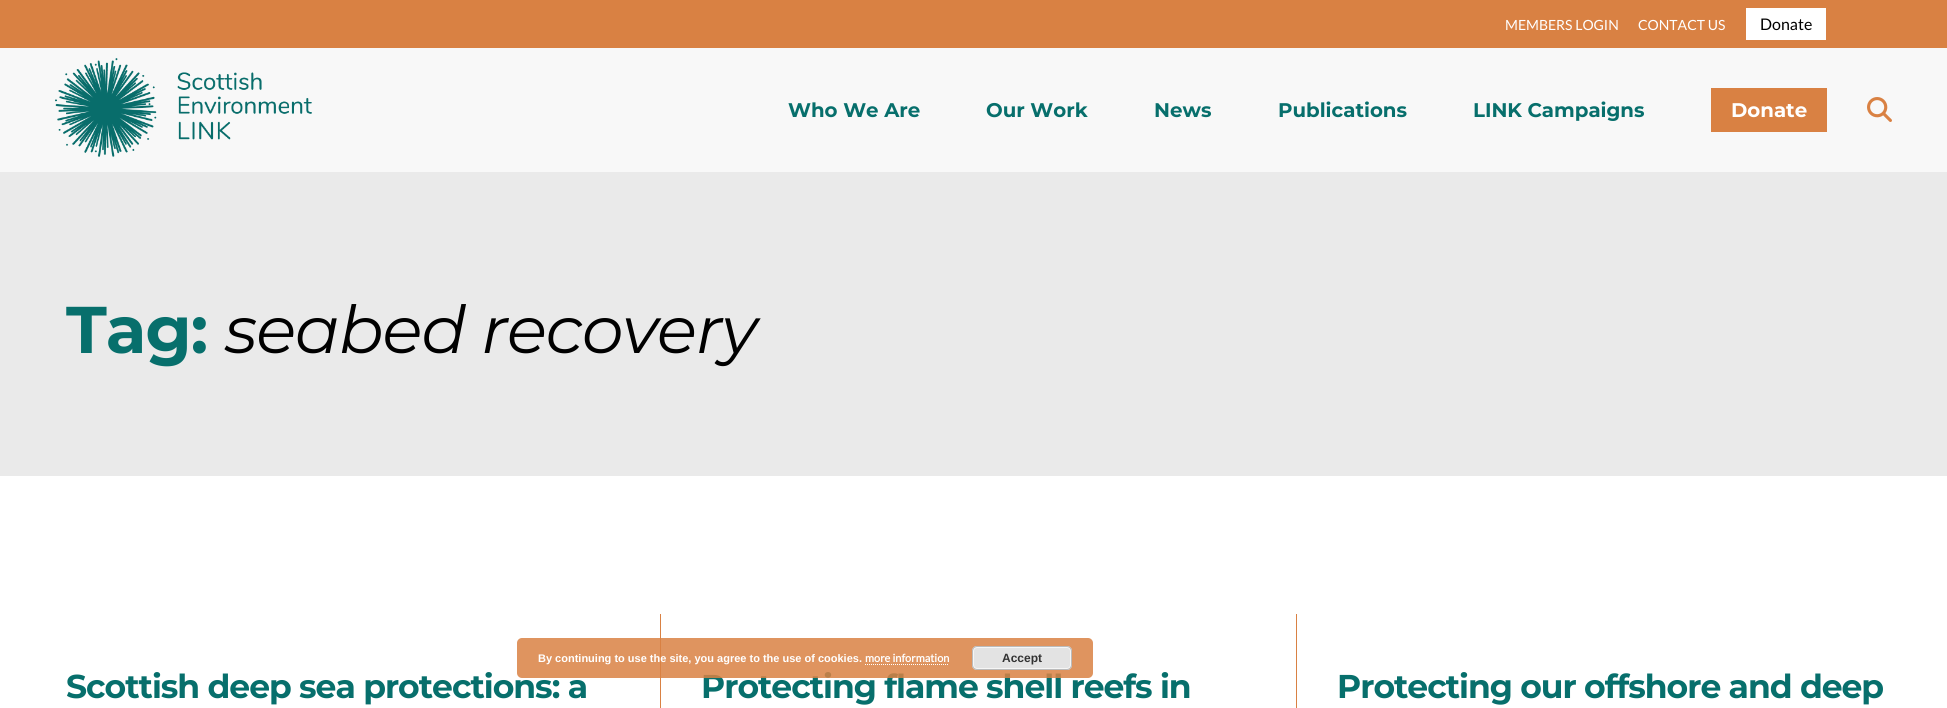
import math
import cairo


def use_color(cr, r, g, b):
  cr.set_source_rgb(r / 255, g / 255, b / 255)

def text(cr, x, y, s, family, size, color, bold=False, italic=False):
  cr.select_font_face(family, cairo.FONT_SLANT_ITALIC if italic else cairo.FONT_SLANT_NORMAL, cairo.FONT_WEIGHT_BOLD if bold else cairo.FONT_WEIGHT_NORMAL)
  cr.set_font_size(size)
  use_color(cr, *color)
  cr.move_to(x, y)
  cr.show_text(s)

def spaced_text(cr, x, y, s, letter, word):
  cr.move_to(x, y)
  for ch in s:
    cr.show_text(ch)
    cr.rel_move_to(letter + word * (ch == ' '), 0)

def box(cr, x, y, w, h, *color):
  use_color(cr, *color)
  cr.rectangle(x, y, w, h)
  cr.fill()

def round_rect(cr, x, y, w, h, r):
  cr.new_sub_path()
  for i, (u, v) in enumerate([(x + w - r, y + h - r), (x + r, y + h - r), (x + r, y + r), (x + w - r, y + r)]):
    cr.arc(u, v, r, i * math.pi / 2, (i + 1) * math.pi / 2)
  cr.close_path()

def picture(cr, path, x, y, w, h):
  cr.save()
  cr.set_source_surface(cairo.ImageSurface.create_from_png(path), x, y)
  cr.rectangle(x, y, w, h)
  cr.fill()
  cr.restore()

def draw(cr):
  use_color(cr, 255, 255, 255)
  cr.paint()
  box(cr, 0, 0, 1947, 48, 217, 129, 67)
  box(cr, 1746, 8, 80, 32, 255, 255, 255)
  box(cr, 0, 48, 1947, 124, 248, 248, 248)
  picture(cr, "img_01.png", 55, 58, 257, 99)
  box(cr, 1711, 88, 116, 44, 217, 129, 67)
  picture(cr, "img_02.png", 1867, 97, 25, 25)
  box(cr, 0, 172, 1947, 304, 234, 234, 234)
  box(cr, 660, 614, 1, 94, 217, 129, 67)
  box(cr, 1296, 614, 1, 94, 217, 129, 67)
  text(cr, 1505, 30, "MEMBERS LOGIN", "Lato", 14, (255, 255, 255))
  text(cr, 1638, 30, "CONTACT US", "Lato", 14, (255, 255, 255))
  text(cr, 1760, 30, "Donate", "Lato", 16, (0, 0, 0))
  text(cr, 788, 117, "Who We Are", "Montserrat", 19.75, (7, 111, 108), bold=True)
  text(cr, 986, 117, "Our Work", "Montserrat", 19.75, (7, 111, 108), bold=True)
  text(cr, 1154, 117, "News", "Montserrat", 19.75, (7, 111, 108), bold=True)
  text(cr, 1278, 117, "Publications", "Montserrat", 19.75, (7, 111, 108), bold=True)
  text(cr, 1473, 117, "LINK Campaigns", "Montserrat", 19.75, (7, 111, 108), bold=True)
  text(cr, 1731, 117, "Donate", "Montserrat", 19.75, (255, 255, 255), bold=True)
  cr.set_font_size(66)
  use_color(cr, 7, 111, 108)
  spaced_text(cr, 66, 353, "Tag:", -1, 0)
  cr.select_font_face("Montserrat Thin", cairo.FONT_SLANT_ITALIC)
  use_color(cr, 0, 0, 0)
  spaced_text(cr, 225, 353, "seabed recovery", -1, 0)
  cr.select_font_face("Montserrat", cairo.FONT_SLANT_NORMAL, cairo.FONT_WEIGHT_BOLD)
  cr.set_font_size(33)
  use_color(cr, 7, 111, 108)
  spaced_text(cr, 66, 698, "Scottish deep sea protections: a", -1, 0)
  spaced_text(cr, 701, 698, "Protecting flame shell reefs in", -1, 0)
  cr.set_source_rgba(0.851, 0.506, 0.263, 0.85)
  round_rect(cr, 517, 638, 576, 40, 5)
  cr.fill()
  use_color(cr, 227, 227, 227)
  round_rect(cr, 972, 646, 100, 24, 5)
  cr.fill()
  round_rect(cr, 973.5, 647.5, 97, 21, 3.5)
  use_color(cr, 246, 246, 246)
  cr.set_line_width(1)
  cr.stroke()
  round_rect(cr, 972.5, 646.5, 99, 23, 4.5)
  use_color(cr, 187, 187, 187)
  cr.stroke()
  text(cr, 1002, 662, "Accept", "Liberation Sans", 12, (51, 51, 51), bold=True)
  text(cr, 865, 662, "more information", "Lato", 11, (255, 255, 255), bold=True)
  cr.new_path()
  cr.move_to(865, 664.5)
  cr.line_to(949, 664.5)
  cr.set_dash([1, 1])
  cr.stroke()
  text(cr, 538, 662, "By continuing to use the site, you agree to the use of cookies.", "Liberation Sans", 11, (255, 255, 255), bold=True)
  cr.select_font_face("Montserrat", cairo.FONT_SLANT_NORMAL, cairo.FONT_WEIGHT_BOLD)
  cr.set_font_size(33)
  use_color(cr, 7, 111, 108)
  spaced_text(cr, 1337, 698, "Protecting our offshore and deep", -1, 0)


surface = cairo.ImageSurface(cairo.FORMAT_RGB24, 1947, 708)
cr = cairo.Context(surface)
options = cairo.FontOptions()
options.set_hint_metrics(cairo.HINT_METRICS_OFF)
options.set_hint_style(cairo.HINT_STYLE_NONE)
cr.set_font_options(options)
cr.set_miter_limit(4)
draw(cr)
surface.write_to_png("out.png")
